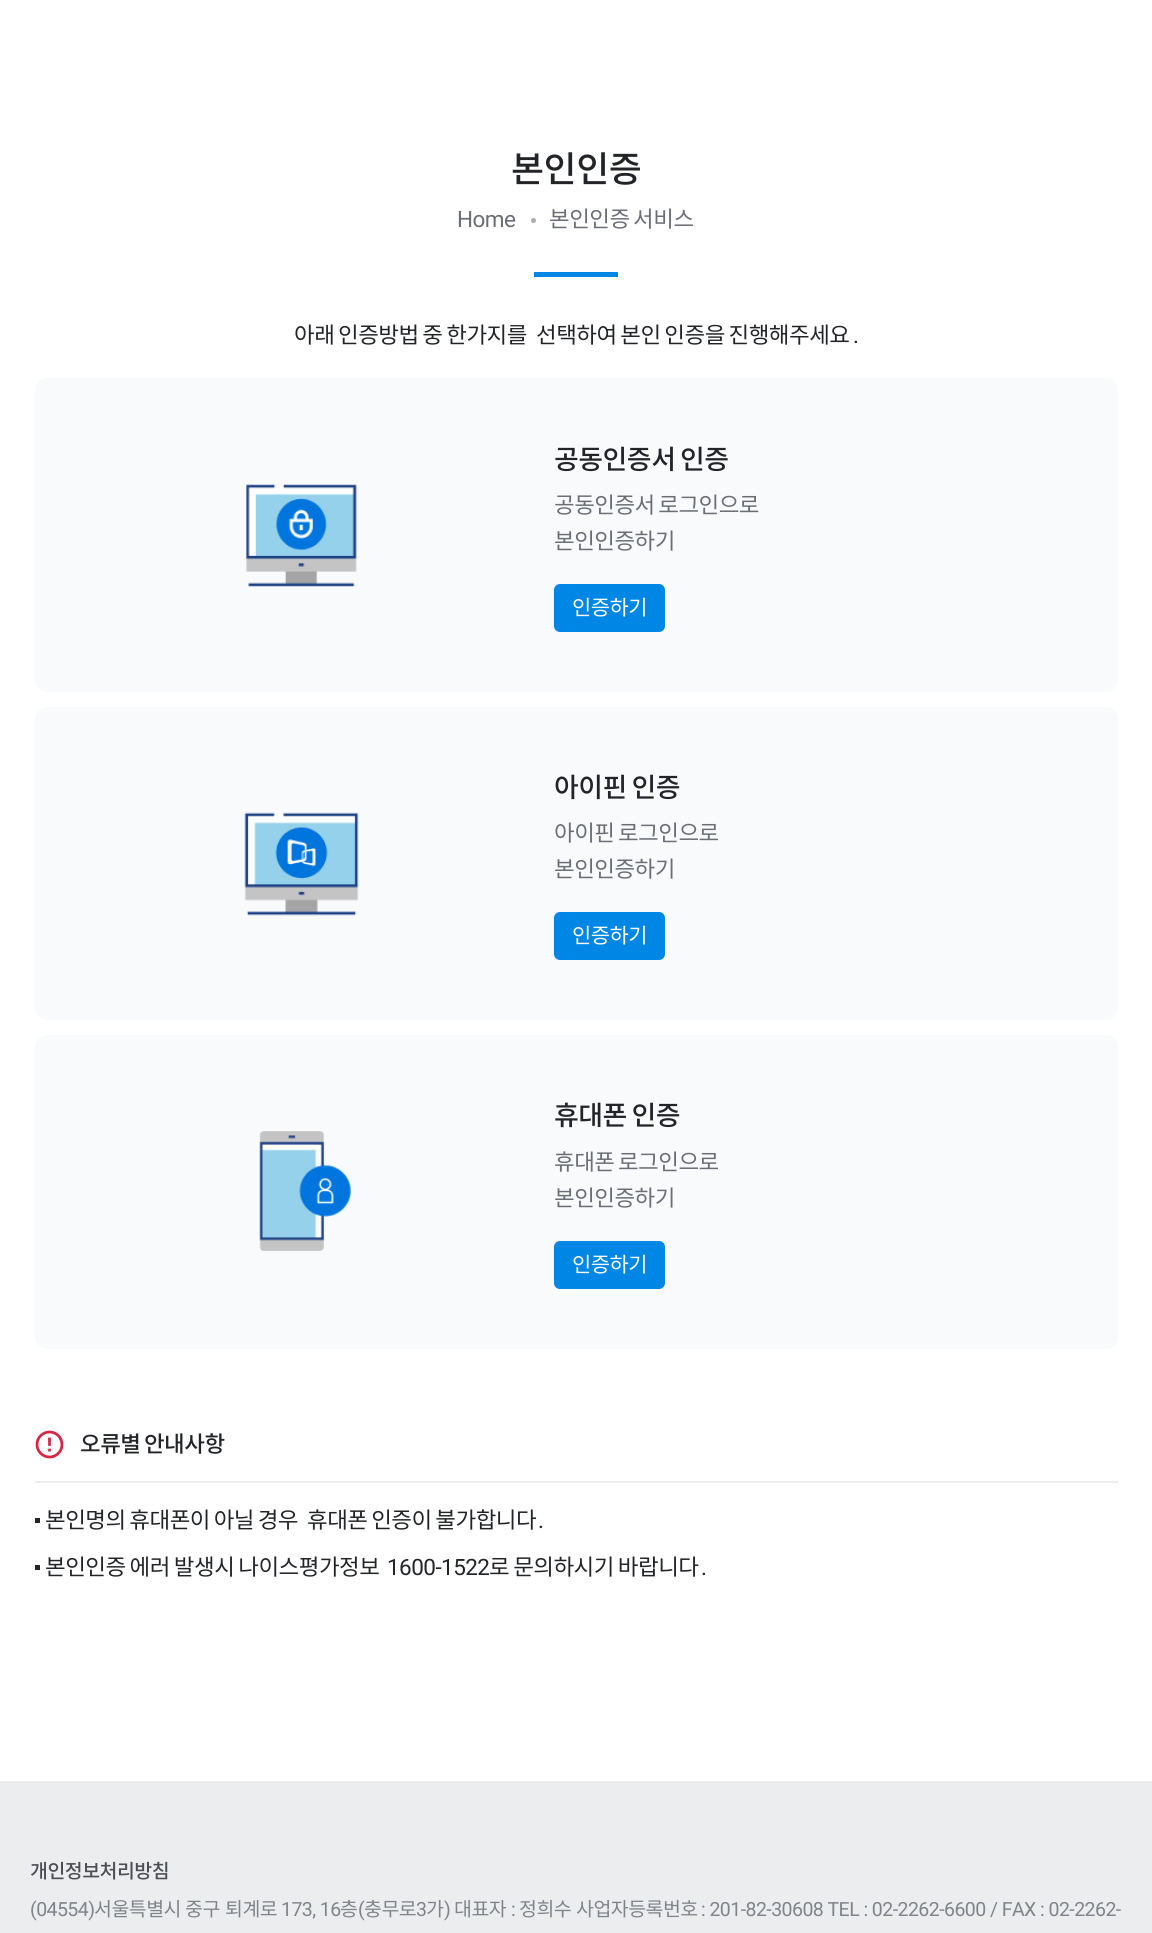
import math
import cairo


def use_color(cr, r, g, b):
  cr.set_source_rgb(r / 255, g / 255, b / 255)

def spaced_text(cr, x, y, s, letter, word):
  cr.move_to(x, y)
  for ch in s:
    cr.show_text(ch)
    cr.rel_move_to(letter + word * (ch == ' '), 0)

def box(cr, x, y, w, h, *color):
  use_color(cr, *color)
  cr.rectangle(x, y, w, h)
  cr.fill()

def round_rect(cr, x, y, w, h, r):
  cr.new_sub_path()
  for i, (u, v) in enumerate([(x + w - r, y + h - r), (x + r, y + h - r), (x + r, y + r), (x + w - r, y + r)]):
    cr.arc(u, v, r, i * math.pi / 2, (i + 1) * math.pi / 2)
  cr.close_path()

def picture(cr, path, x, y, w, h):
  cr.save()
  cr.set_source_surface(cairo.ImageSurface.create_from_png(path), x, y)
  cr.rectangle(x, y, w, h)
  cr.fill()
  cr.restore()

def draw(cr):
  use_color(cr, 255, 255, 255)
  cr.paint()
  use_color(cr, 170, 173, 180)
  cr.arc(533.5, 220.5, 2.5, 0, 2 * math.pi)
  cr.fill()
  box(cr, 534, 272, 84, 5, 0, 135, 230)
  use_color(cr, 249, 250, 252)
  round_rect(cr, 35, 378, 1083, 314, 12)
  cr.fill()
  picture(cr, "img_01.png", 246, 484, 111, 103)
  use_color(cr, 0, 135, 230)
  round_rect(cr, 554, 584, 111, 48, 6)
  cr.fill()
  use_color(cr, 249, 250, 252)
  round_rect(cr, 35, 707, 1083, 313, 12)
  cr.fill()
  picture(cr, "img_02.png", 244, 812, 115, 104)
  use_color(cr, 0, 135, 230)
  round_rect(cr, 554, 912, 111, 48, 6)
  cr.fill()
  use_color(cr, 249, 250, 252)
  round_rect(cr, 35, 1035, 1083, 314, 12)
  cr.fill()
  picture(cr, "img_03.png", 259, 1131, 92, 120)
  use_color(cr, 0, 135, 230)
  round_rect(cr, 554, 1241, 111, 48, 6)
  cr.fill()
  picture(cr, "img_04.png", 35, 1430, 29, 29)
  box(cr, 35, 1481, 1083, 2, 235, 237, 238)
  box(cr, 35, 1518, 5, 5, 34, 36, 40)
  box(cr, 35, 1565, 5, 5, 34, 36, 40)
  box(cr, 0, 1781, 1152, 152, 235, 237, 238)
  cr.select_font_face("Noto Sans KR Medium")
  cr.set_font_size(36)
  use_color(cr, 34, 36, 40)
  spaced_text(cr, 511, 182, "본인인증", -0.55, 0)
  cr.select_font_face("Roboto")
  cr.set_font_size(22.5)
  use_color(cr, 107, 110, 116)
  spaced_text(cr, 457, 227, "Home", -0.55, 0)
  cr.select_font_face("Noto Sans KR")
  spaced_text(cr, 549, 227, "본인인증 서비스", -0.55, -1)
  use_color(cr, 34, 36, 40)
  spaced_text(cr, 294, 343, "아래 인증방법 중 한가지를", -0.55, -0.75)
  spaced_text(cr, 536, 343, "선택하여 본인 인증을 진행해주세요", -0.55, -0.75)
  cr.select_font_face("Roboto")
  spaced_text(cr, 853, 343, ".", -0.55, 0)
  cr.select_font_face("Noto Sans KR Medium")
  cr.set_font_size(27)
  spaced_text(cr, 554, 469, "공동인증서 인증", -0.55, -1)
  cr.select_font_face("Noto Sans KR")
  cr.set_font_size(22.5)
  use_color(cr, 107, 110, 116)
  spaced_text(cr, 554, 513, "공동인증서 로그인으로", -0.55, -1)
  spaced_text(cr, 554, 549, "본인인증하기", -0.55, 0)
  cr.set_font_size(21)
  use_color(cr, 255, 255, 255)
  spaced_text(cr, 572, 615, "인증하기", -0.55, 0)
  cr.select_font_face("Noto Sans KR Medium")
  cr.set_font_size(27)
  use_color(cr, 34, 36, 40)
  spaced_text(cr, 554, 797, "아이핀 인증", -0.55, -1)
  cr.select_font_face("Noto Sans KR")
  cr.set_font_size(22.5)
  use_color(cr, 107, 110, 116)
  spaced_text(cr, 554, 841, "아이핀 로그인으로", -0.55, -1)
  spaced_text(cr, 554, 877, "본인인증하기", -0.55, 0)
  cr.set_font_size(21)
  use_color(cr, 255, 255, 255)
  spaced_text(cr, 572, 943, "인증하기", -0.55, 0)
  cr.select_font_face("Noto Sans KR Medium")
  cr.set_font_size(27)
  use_color(cr, 34, 36, 40)
  spaced_text(cr, 554, 1125, "휴대폰 인증", -0.55, -1)
  cr.select_font_face("Noto Sans KR")
  cr.set_font_size(22.5)
  use_color(cr, 107, 110, 116)
  spaced_text(cr, 554, 1170, "휴대폰 로그인으로", -0.55, -1)
  spaced_text(cr, 554, 1206, "본인인증하기", -0.55, 0)
  cr.set_font_size(21)
  use_color(cr, 255, 255, 255)
  spaced_text(cr, 572, 1272, "인증하기", -0.55, 0)
  cr.select_font_face("Noto Sans KR Medium")
  cr.set_font_size(22.5)
  use_color(cr, 34, 36, 40)
  spaced_text(cr, 80, 1452, "오류별 안내사항", -0.55, -1)
  cr.select_font_face("Noto Sans KR")
  spaced_text(cr, 45, 1528, "본인명의 휴대폰이 아닐 경우", -0.55, -0.75)
  spaced_text(cr, 307, 1528, "휴대폰 인증이 불가합니다", -0.55, -0.75)
  cr.select_font_face("Roboto")
  spaced_text(cr, 538, 1528, ".", -0.55, 0)
  cr.select_font_face("Noto Sans KR")
  spaced_text(cr, 45, 1575, "본인인증 에러 발생시 나이스평가정보", -0.55, -0.5)
  cr.select_font_face("Roboto")
  spaced_text(cr, 387, 1575, "1600-1522", -0.55, 0)
  cr.select_font_face("Noto Sans KR")
  spaced_text(cr, 489, 1575, "로 문의하시기 바랍니다", -0.55, -0.5)
  cr.select_font_face("Roboto")
  spaced_text(cr, 701, 1575, ".", -0.55, 0)
  cr.select_font_face("Noto Sans KR Medium")
  cr.set_font_size(19.5)
  use_color(cr, 76, 78, 84)
  spaced_text(cr, 30, 1878, "개인정보처리방침", -0.55, 0)
  cr.select_font_face("Roboto")
  use_color(cr, 128, 131, 137)
  spaced_text(cr, 30, 1916, "(04554)", -0.55, 0)
  cr.select_font_face("Noto Sans KR")
  spaced_text(cr, 94, 1916, "서울특별시", -0.55, 0)
  spaced_text(cr, 185, 1916, "중구", -0.55, 0)
  spaced_text(cr, 225, 1916, "퇴계로", -0.55, 0)
  cr.select_font_face("Roboto")
  spaced_text(cr, 281, 1916, "173, 16", -0.55, 0)
  cr.select_font_face("Noto Sans KR")
  spaced_text(cr, 340, 1916, "층", -0.55, 0)
  cr.select_font_face("Roboto")
  spaced_text(cr, 358, 1916, "(", -0.55, 0)
  cr.select_font_face("Noto Sans KR")
  spaced_text(cr, 364, 1916, "충무로", -0.55, 0)
  cr.select_font_face("Roboto")
  spaced_text(cr, 416, 1916, "3", -0.55, 0)
  cr.select_font_face("Noto Sans KR")
  spaced_text(cr, 426, 1916, "가", -0.55, 0)
  cr.select_font_face("Roboto")
  spaced_text(cr, 444, 1916, ")", -0.55, 0)
  cr.select_font_face("Noto Sans KR")
  spaced_text(cr, 454, 1916, "대표자", -0.55, 0)
  cr.select_font_face("Roboto")
  spaced_text(cr, 511, 1916, ":", -0.55, 0)
  cr.select_font_face("Noto Sans KR")
  spaced_text(cr, 519, 1916, "정희수", -0.55, 0)
  spaced_text(cr, 576, 1916, "사업자등록번호", -0.55, 0)
  cr.select_font_face("Roboto")
  spaced_text(cr, 701, 1916, ": 201-82-30608 TEL : 02-2262-6600 / FAX : 02-2262-", -0.55, 0)


surface = cairo.ImageSurface(cairo.FORMAT_RGB24, 1152, 1933)
cr = cairo.Context(surface)
options = cairo.FontOptions()
options.set_hint_metrics(cairo.HINT_METRICS_OFF)
options.set_hint_style(cairo.HINT_STYLE_NONE)
cr.set_font_options(options)
cr.set_miter_limit(4)
draw(cr)
surface.write_to_png("out.png")
